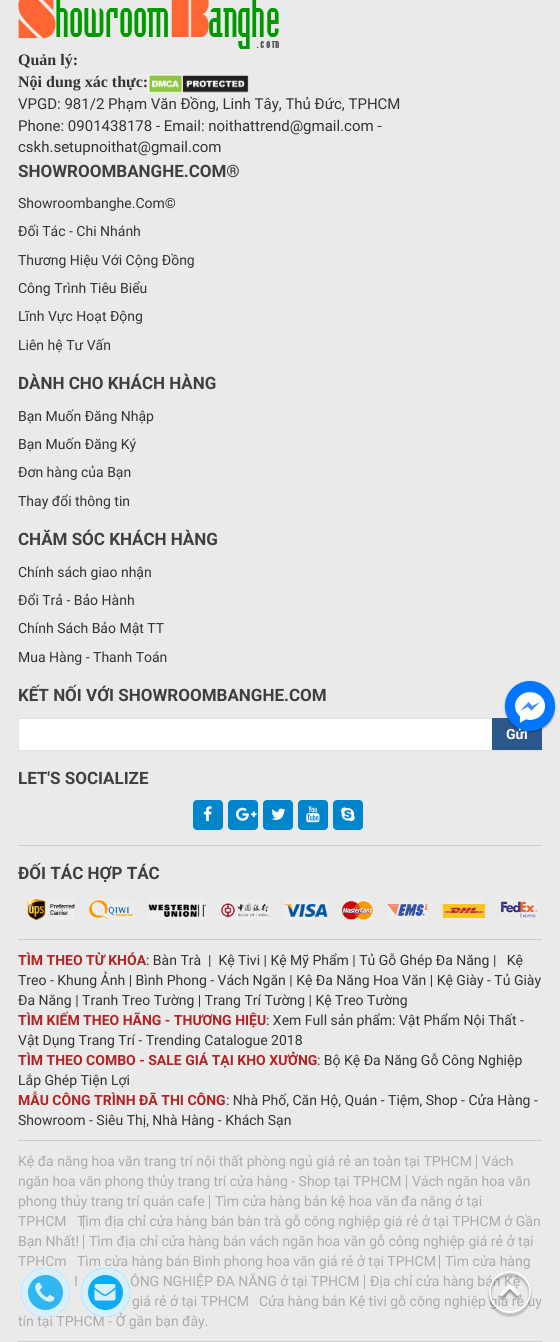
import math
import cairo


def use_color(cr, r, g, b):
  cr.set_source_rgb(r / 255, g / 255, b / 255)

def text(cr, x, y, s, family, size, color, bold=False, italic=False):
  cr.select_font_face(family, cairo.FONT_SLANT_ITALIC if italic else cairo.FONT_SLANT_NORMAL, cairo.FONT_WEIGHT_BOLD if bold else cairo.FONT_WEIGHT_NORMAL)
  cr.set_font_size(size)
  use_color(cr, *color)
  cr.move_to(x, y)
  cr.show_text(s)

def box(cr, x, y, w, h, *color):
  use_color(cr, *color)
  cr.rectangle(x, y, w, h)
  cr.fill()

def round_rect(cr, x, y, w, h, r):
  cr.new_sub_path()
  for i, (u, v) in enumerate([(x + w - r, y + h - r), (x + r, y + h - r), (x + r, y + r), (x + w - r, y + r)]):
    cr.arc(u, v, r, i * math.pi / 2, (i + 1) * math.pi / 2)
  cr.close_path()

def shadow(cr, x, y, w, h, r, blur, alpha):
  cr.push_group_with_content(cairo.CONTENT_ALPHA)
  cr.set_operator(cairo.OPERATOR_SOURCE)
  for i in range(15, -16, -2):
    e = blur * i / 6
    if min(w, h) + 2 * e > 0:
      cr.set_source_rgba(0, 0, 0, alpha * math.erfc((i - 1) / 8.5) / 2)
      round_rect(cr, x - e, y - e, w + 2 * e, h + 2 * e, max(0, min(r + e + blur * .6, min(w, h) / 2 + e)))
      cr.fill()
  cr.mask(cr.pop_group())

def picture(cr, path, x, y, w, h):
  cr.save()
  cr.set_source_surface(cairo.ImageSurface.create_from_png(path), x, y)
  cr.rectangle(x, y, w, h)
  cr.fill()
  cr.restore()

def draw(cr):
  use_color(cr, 234, 234, 234)
  cr.paint()
  picture(cr, "img_01.png", 18, 0, 261, 49)
  picture(cr, "img_02.png", 148, 74, 101, 19)
  box(cr, 19, 719, 473, 31, 255, 255, 255)
  cr.rectangle(18.5, 718.5, 523, 32)
  use_color(cr, 225, 225, 225)
  cr.set_line_width(1)
  cr.stroke()
  box(cr, 492, 718, 50, 32, 45, 88, 140)
  use_color(cr, 0, 132, 203)
  round_rect(cr, 193, 800, 30, 30, 4)
  cr.fill()
  picture(cr, "img_03.png", 203, 806, 9, 16)
  round_rect(cr, 228, 800, 30, 30, 4)
  cr.fill()
  picture(cr, "img_04.png", 236, 807, 21, 14)
  round_rect(cr, 263, 800, 30, 30, 4)
  cr.fill()
  picture(cr, "img_05.png", 271, 808, 15, 12)
  round_rect(cr, 298, 800, 30, 30, 4)
  cr.fill()
  picture(cr, "img_06.png", 306, 806, 14, 17)
  round_rect(cr, 333, 800, 30, 30, 4)
  cr.fill()
  picture(cr, "img_07.png", 341, 807, 14, 15)
  box(cr, 18, 845, 524, 1, 204, 204, 204)
  box(cr, 18, 939, 524, 1, 204, 204, 204)
  picture(cr, "img_08.png", 27, 899, 512, 21)
  box(cr, 18, 1140, 524, 1, 204, 204, 204)
  box(cr, 18, 1341, 524, 1, 204, 204, 204)
  box(cr, 476, 1155, 1, 14, 171, 171, 171)
  box(cr, 406, 1175, 1, 14, 171, 171, 171)
  box(cr, 209, 1195, 1, 14, 171, 171, 171)
  box(cr, 83, 1215, 1, 14, 171, 171, 171)
  box(cr, 83, 1235, 1, 14, 171, 171, 171)
  box(cr, 439, 1255, 1, 14, 171, 171, 171)
  box(cr, 364, 1275, 1, 14, 171, 171, 171)
  use_color(cr, 0, 0, 0)
  shadow(cr, 505, 682, 50, 50, 25, 1, 0.4)
  text(cr, 18, 65, "Quản lý:", "Liberation Serif", 16, (51, 51, 51), bold=True)
  text(cr, 18, 87, "Nội dung xác thực:", "Liberation Serif", 16, (51, 51, 51), bold=True)
  text(cr, 18, 109, "VPGD: 981/2 Phạm Văn Đồng, Linh Tây, Thủ Đức, TPHCM", "Roboto", 15, (51, 51, 51))
  text(cr, 18, 131, "Phone: 0901438178 - Email: noithattrend@gmail.com -", "Roboto", 15, (51, 51, 51))
  text(cr, 18, 152, "cskh.setupnoithat@gmail.com", "Roboto", 15, (51, 51, 51))
  text(cr, 18, 177, "SHOWROOMBANGHE.COM®", "Roboto", 17, (63, 63, 63), bold=True)
  text(cr, 18, 208, "Showroombanghe.Com©", "Roboto", 14, (51, 51, 51))
  text(cr, 18, 236, "Đối Tác - Chi Nhánh", "Roboto", 14, (51, 51, 51))
  text(cr, 18, 265, "Thương Hiệu Với Cộng Đồng", "Roboto", 14, (51, 51, 51))
  text(cr, 18, 293, "Công Trình Tiêu Biểu", "Roboto", 14, (51, 51, 51))
  text(cr, 18, 321, "Lĩnh Vực Hoạt Động", "Roboto", 14, (51, 51, 51))
  text(cr, 18, 350, "Liên hệ Tư Vấn", "Roboto", 14, (51, 51, 51))
  text(cr, 18, 389, "DÀNH CHO KHÁCH HÀNG", "Roboto", 17, (63, 63, 63), bold=True)
  text(cr, 18, 421, "Bạn Muốn Đăng Nhập", "Roboto", 14, (51, 51, 51))
  text(cr, 18, 449, "Bạn Muốn Đăng Ký", "Roboto", 14, (51, 51, 51))
  text(cr, 18, 477, "Đơn hàng của Bạn", "Roboto", 14, (51, 51, 51))
  text(cr, 18, 506, "Thay đổi thông tin", "Roboto", 14, (51, 51, 51))
  text(cr, 18, 545, "CHĂM SÓC KHÁCH HÀNG", "Roboto", 17, (63, 63, 63), bold=True)
  text(cr, 18, 577, "Chính sách giao nhận", "Roboto", 14, (51, 51, 51))
  text(cr, 18, 605, "Đổi Trả - Bảo Hành", "Roboto", 14, (51, 51, 51))
  text(cr, 18, 633, "Chính Sách Bảo Mật TT", "Roboto", 14, (51, 51, 51))
  text(cr, 18, 662, "Mua Hàng - Thanh Toán", "Roboto", 14, (51, 51, 51))
  text(cr, 18, 701, "KẾT NỐI VỚI SHOWROOMBANGHE.COM", "Roboto", 17, (63, 63, 63), bold=True)
  text(cr, 506, 739, "Gửi", "Roboto", 14, (255, 255, 255), bold=True)
  text(cr, 18, 784, "LET'S SOCIALIZE", "Roboto", 17, (63, 63, 63), bold=True)
  text(cr, 18, 879, "ĐỐI TÁC HỢP TÁC", "Roboto", 17, (63, 63, 63), bold=True)
  text(cr, 18, 965, "TÌM THEO TỪ KHÓA", "Roboto", 14, (178, 34, 34), bold=True)
  text(cr, 146, 965, ": Bàn Trà  |  Kệ Tivi | Kệ Mỹ Phẩm | Tủ Gỗ Ghép Đa Năng |   Kệ", "Roboto", 14, (51, 51, 51))
  text(cr, 18, 985, "Treo - Khung Ảnh | Bình Phong - Vách Ngăn | Kệ Đa Năng Hoa Văn | Kệ Giày - Tủ Giày", "Roboto", 14, (51, 51, 51))
  text(cr, 18, 1005, "Đa Năng | Tranh Treo Tường | Trang Trí Tường | Kệ Treo Tường", "Roboto", 14, (51, 51, 51))
  text(cr, 18, 1025, "TÌM KIẾM THEO HÃNG - THƯƠNG HIỆU", "Roboto", 14, (178, 34, 34), bold=True)
  text(cr, 266, 1025, ": Xem Full sản phẩm: Vật Phẩm Nội Thất -", "Roboto", 14, (51, 51, 51))
  text(cr, 18, 1045, "Vật Dụng Trang Trí - Trending Catalogue 2018", "Roboto", 14, (51, 51, 51))
  text(cr, 18, 1065, "TÌM THEO COMBO - SALE GIÁ TẠI KHO XƯỞNG", "Roboto", 14, (178, 34, 34), bold=True)
  text(cr, 317, 1065, ": Bộ Kệ Đa Năng Gỗ Công Nghiệp", "Roboto", 14, (51, 51, 51))
  text(cr, 18, 1085, "Lắp Ghép Tiện Lợi", "Roboto", 14, (51, 51, 51))
  text(cr, 18, 1105, "MẪU CÔNG TRÌNH ĐÃ THI CÔNG", "Roboto", 14, (178, 34, 34), bold=True)
  text(cr, 226, 1105, ": Nhà Phố, Căn Hộ, Quán - Tiệm, Shop - Cửa Hàng -", "Roboto", 14, (51, 51, 51))
  text(cr, 18, 1125, "Showroom - Siêu Thị, Nhà Hàng - Khách Sạn", "Roboto", 14, (51, 51, 51))
  text(cr, 18, 1166, "Kệ đa năng hoa văn trang trí nội thất phòng ngủ giá rẻ an toàn tại TPHCM", "Roboto", 14, (171, 171, 171))
  text(cr, 482, 1166, "Vách", "Roboto", 14, (171, 171, 171))
  text(cr, 18, 1186, "ngăn hoa văn phong thủy trang trí cửa hàng - Shop tại TPHCM", "Roboto", 14, (171, 171, 171))
  text(cr, 412, 1186, "Vách ngăn hoa văn", "Roboto", 14, (171, 171, 171))
  text(cr, 18, 1206, "phong thủy trang trí quán cafe", "Roboto", 14, (171, 171, 171))
  text(cr, 215, 1206, "Tìm cửa hàng bán kệ hoa văn đa năng ở tại", "Roboto", 14, (171, 171, 171))
  text(cr, 18, 1226, "TPHCM", "Roboto", 14, (171, 171, 171))
  text(cr, 77, 1226, "Tìm địa chỉ cửa hàng bán bàn trà gỗ công nghiệp giá rẻ ở tại TPHCM ở Gần", "Roboto", 14, (171, 171, 171))
  text(cr, 18, 1246, "Bạn Nhất!", "Roboto", 14, (171, 171, 171))
  text(cr, 89, 1246, "Tìm địa chỉ cửa hàng bán vách ngăn hoa văn gỗ công nghiệp giá rẻ ở tại", "Roboto", 14, (171, 171, 171))
  text(cr, 18, 1266, "TPHCm", "Roboto", 14, (171, 171, 171))
  text(cr, 77, 1266, "Tìm cửa hàng bán Bình phong hoa văn giá rẻ ở tại TPHCM", "Roboto", 14, (171, 171, 171))
  text(cr, 445, 1266, "Tìm cửa hàng", "Roboto", 14, (171, 171, 171))
  text(cr, 130, 1286, "ÔNG NGHIỆP ĐA NĂNG ở tại TPHCM", "Roboto", 14, (171, 171, 171))
  text(cr, 74, 1286, "I", "Roboto", 14, (171, 171, 171))
  text(cr, 370, 1286, "Địa chỉ cửa hàng bán Kệ", "Roboto", 14, (171, 171, 171))
  text(cr, 132, 1306, "giá rẻ ở tại TPHCM", "Roboto", 14, (171, 171, 171))
  text(cr, 259, 1306, "Cửa hàng bán Kệ tivi gỗ công nghiệp giá rẻ uy", "Roboto", 14, (171, 171, 171))
  text(cr, 18, 1326, "tín tại TPHCM - Ở gần bạn đây.", "Roboto", 14, (171, 171, 171))
  use_color(cr, 0, 117, 255)
  cr.new_path()
  cr.arc(530, 706, 25, 0, 2 * math.pi)
  cr.fill()
  picture(cr, "img_09.png", 514, 691, 31, 32)
  cr.set_source_rgba(0.012, 0.663, 0.957, 0.8)
  cr.arc(45.5, 1292.5, 24.5, 0, 2 * math.pi)
  cr.fill()
  cr.arc(45.5, 1292.5, 21, 0, 2 * math.pi)
  cr.set_source_rgba(1, 1, 1, 0.8)
  cr.set_line_width(7)
  cr.stroke()
  picture(cr, "img_10.png", 35, 1282, 20, 20)
  cr.set_source_rgba(0.012, 0.663, 0.957, 0.8)
  cr.arc(105.5, 1292.5, 24.5, 0, 2 * math.pi)
  cr.fill()
  cr.arc(105.5, 1292.5, 21, 0, 2 * math.pi)
  cr.set_source_rgba(1, 1, 1, 0.8)
  cr.stroke()
  picture(cr, "img_11.png", 94, 1284, 22, 17)
  cr.set_source_rgba(0.012, 0.663, 0.957, 0.8)
  cr.arc(105.5, 1292.5, 24.5, 0, 2 * math.pi)
  cr.fill()
  cr.arc(105.5, 1292.5, 21, 0, 2 * math.pi)
  cr.set_source_rgba(1, 1, 1, 0.8)
  cr.stroke()
  picture(cr, "img_12.png", 94, 1284, 22, 17)
  picture(cr, "img_13.png", 487, 1271, 46, 46)


surface = cairo.ImageSurface(cairo.FORMAT_RGB24, 560, 1342)
cr = cairo.Context(surface)
options = cairo.FontOptions()
options.set_hint_metrics(cairo.HINT_METRICS_OFF)
options.set_hint_style(cairo.HINT_STYLE_NONE)
cr.set_font_options(options)
cr.set_miter_limit(4)
draw(cr)
surface.write_to_png("out.png")
